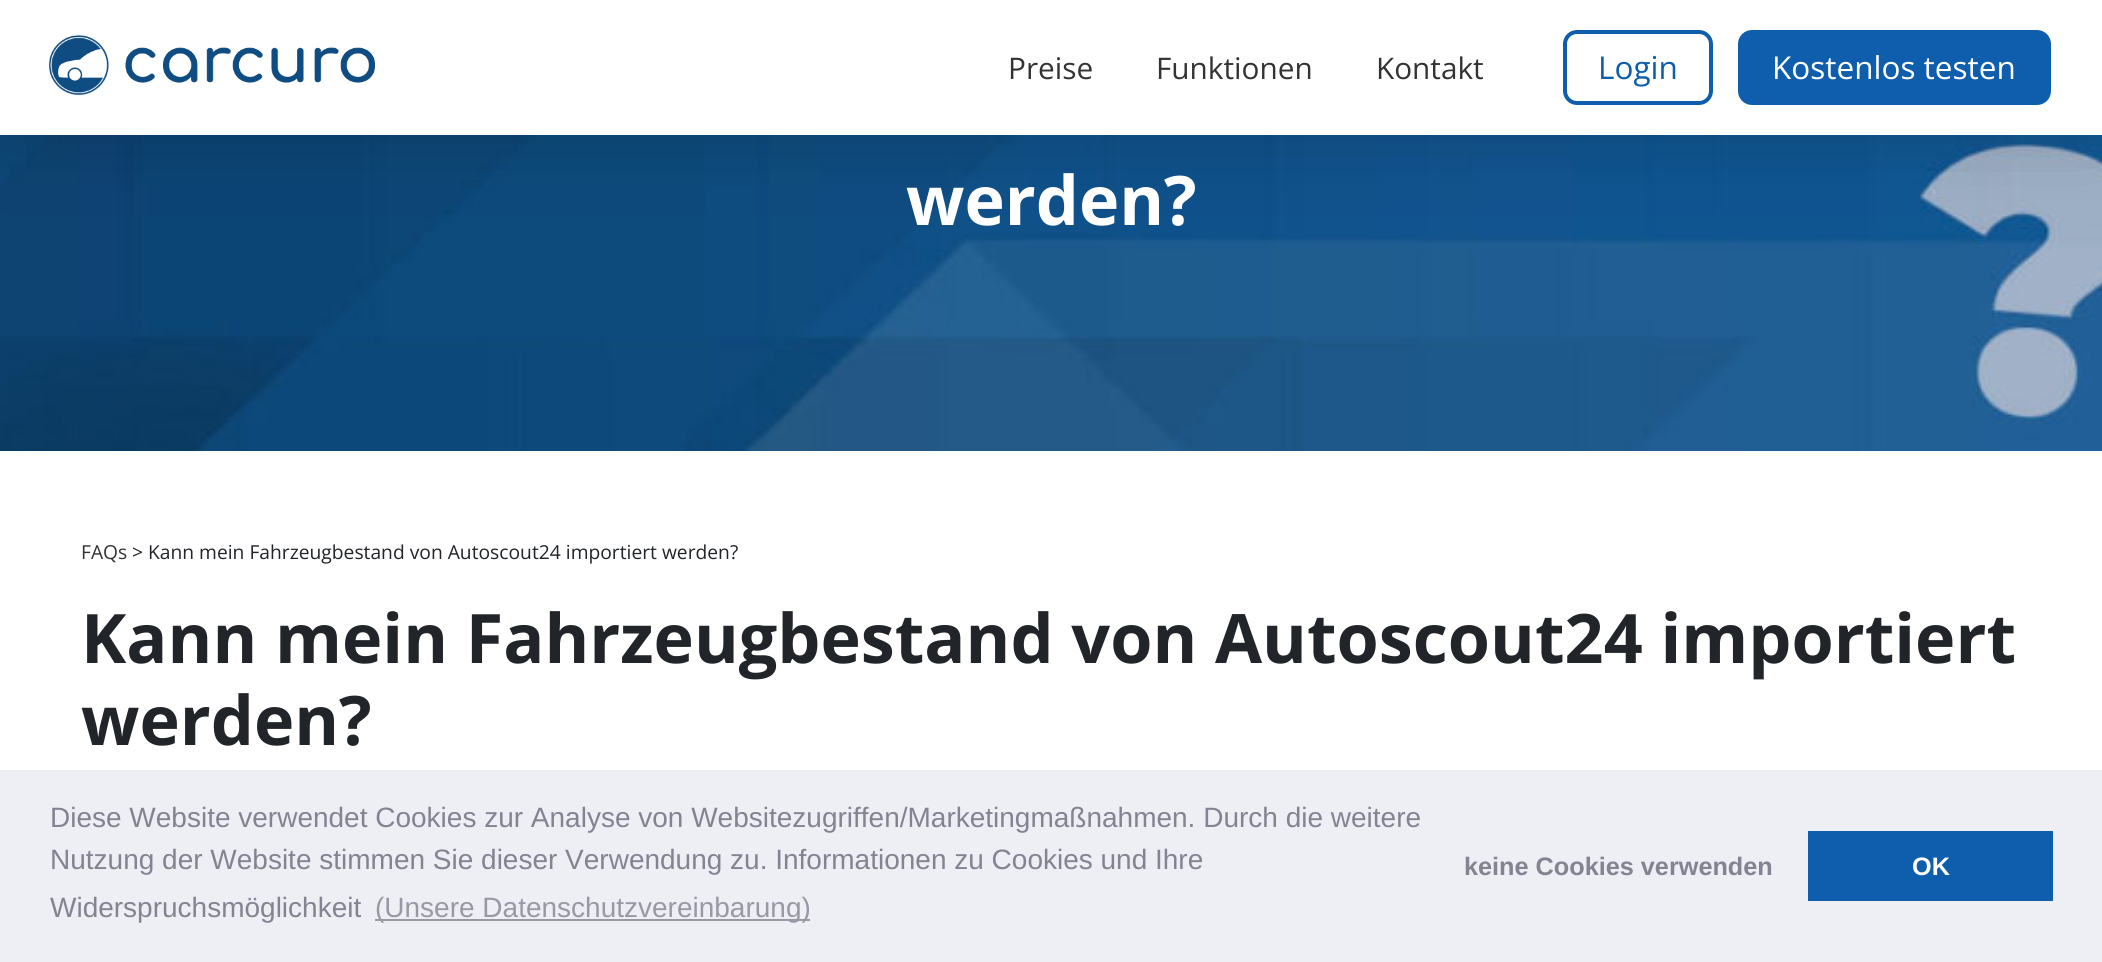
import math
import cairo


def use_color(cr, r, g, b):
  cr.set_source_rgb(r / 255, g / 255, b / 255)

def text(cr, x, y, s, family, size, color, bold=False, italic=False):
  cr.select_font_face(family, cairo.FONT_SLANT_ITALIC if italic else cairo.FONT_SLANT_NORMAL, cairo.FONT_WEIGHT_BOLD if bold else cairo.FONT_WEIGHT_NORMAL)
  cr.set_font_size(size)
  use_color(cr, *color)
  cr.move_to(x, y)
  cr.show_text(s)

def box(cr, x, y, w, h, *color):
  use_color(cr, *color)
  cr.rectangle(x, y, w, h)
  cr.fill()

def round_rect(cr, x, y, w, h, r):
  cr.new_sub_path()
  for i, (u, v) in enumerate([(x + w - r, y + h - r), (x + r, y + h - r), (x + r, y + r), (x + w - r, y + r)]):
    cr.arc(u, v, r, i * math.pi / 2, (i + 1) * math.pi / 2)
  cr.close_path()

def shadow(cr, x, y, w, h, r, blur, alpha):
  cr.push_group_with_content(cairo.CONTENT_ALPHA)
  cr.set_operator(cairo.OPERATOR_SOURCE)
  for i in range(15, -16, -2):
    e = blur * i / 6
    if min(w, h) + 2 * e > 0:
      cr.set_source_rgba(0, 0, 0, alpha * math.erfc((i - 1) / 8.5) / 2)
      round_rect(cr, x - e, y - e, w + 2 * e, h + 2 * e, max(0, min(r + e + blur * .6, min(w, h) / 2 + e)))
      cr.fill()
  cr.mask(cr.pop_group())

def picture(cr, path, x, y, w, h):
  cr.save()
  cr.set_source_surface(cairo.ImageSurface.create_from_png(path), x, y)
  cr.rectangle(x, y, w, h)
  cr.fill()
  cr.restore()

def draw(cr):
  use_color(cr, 255, 255, 255)
  cr.paint()
  picture(cr, "img_02.png", 0, 135, 2102, 316)
  use_color(cr, 0, 0, 0)
  shadow(cr, 0, 0, 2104, 135, 0, 44, 0.17)
  box(cr, 0, 0, 2102, 135, 255, 255, 255)
  picture(cr, "img_01.png", 49, 35, 326, 61)
  round_rect(cr, 1565, 32, 146, 71, 12)
  use_color(cr, 14, 94, 173)
  cr.set_line_width(4)
  cr.stroke()
  round_rect(cr, 1740, 32, 309, 71, 12)
  cr.fill_preserve()
  cr.stroke()
  box(cr, 0, 770, 2102, 192, 237, 239, 245)
  box(cr, 375, 919, 435, 2, 152, 153, 165)
  box(cr, 1808, 831, 245, 70, 14, 94, 173)
  text(cr, 1008, 79, "Preise", "Open Sans", 29.75, (51, 51, 51))
  text(cr, 1156, 79, "Funktionen", "Open Sans", 29.75, (51, 51, 51))
  text(cr, 1376, 79, "Kontakt", "Open Sans", 29.75, (51, 51, 51))
  text(cr, 1598, 79, "Login", "Open Sans", 31.5, (14, 94, 173))
  text(cr, 1772, 79, "Kostenlos testen", "Open Sans", 31.5, (255, 255, 255))
  text(cr, 906, 225, "werden?", "Open Sans", 68.25, (255, 255, 255), bold=True)
  text(cr, 81, 559, "FAQs", "Open Sans", 19.25, (51, 51, 51))
  text(cr, 132, 559, "> Kann mein Fahrzeugbestand von Autoscout24 importiert werden?", "Open Sans", 19.25, (33, 37, 41))
  text(cr, 81, 663, "Kann mein Fahrzeugbestand von Autoscout24 importiert", "Open Sans", 68.25, (33, 37, 41), bold=True)
  text(cr, 81, 745, "werden?", "Open Sans", 68.25, (33, 37, 41), bold=True)
  text(cr, 50, 827, "Diese Website verwendet Cookies zur Analyse von Websitezugriffen/Marketingmaßnahmen. Durch die weitere", "Liberation Sans", 28, (131, 131, 145))
  text(cr, 50, 869, "Nutzung der Website stimmen Sie dieser Verwendung zu. Informationen zu Cookies und Ihre", "Liberation Sans", 28, (131, 131, 145))
  text(cr, 50, 917, "Widerspruchsmöglichkeit", "Liberation Sans", 28, (131, 131, 145))
  text(cr, 375, 917, "(Unsere Datenschutzvereinbarung)", "Liberation Sans", 28, (152, 153, 165))
  text(cr, 1464, 875, "keine Cookies verwenden", "Liberation Sans", 25.25, (131, 131, 145), bold=True)
  text(cr, 1912, 875, "OK", "Liberation Sans", 25.25, (255, 255, 255), bold=True)


surface = cairo.ImageSurface(cairo.FORMAT_RGB24, 2102, 962)
cr = cairo.Context(surface)
options = cairo.FontOptions()
options.set_hint_metrics(cairo.HINT_METRICS_OFF)
options.set_hint_style(cairo.HINT_STYLE_NONE)
cr.set_font_options(options)
cr.set_miter_limit(4)
draw(cr)
surface.write_to_png("out.png")
